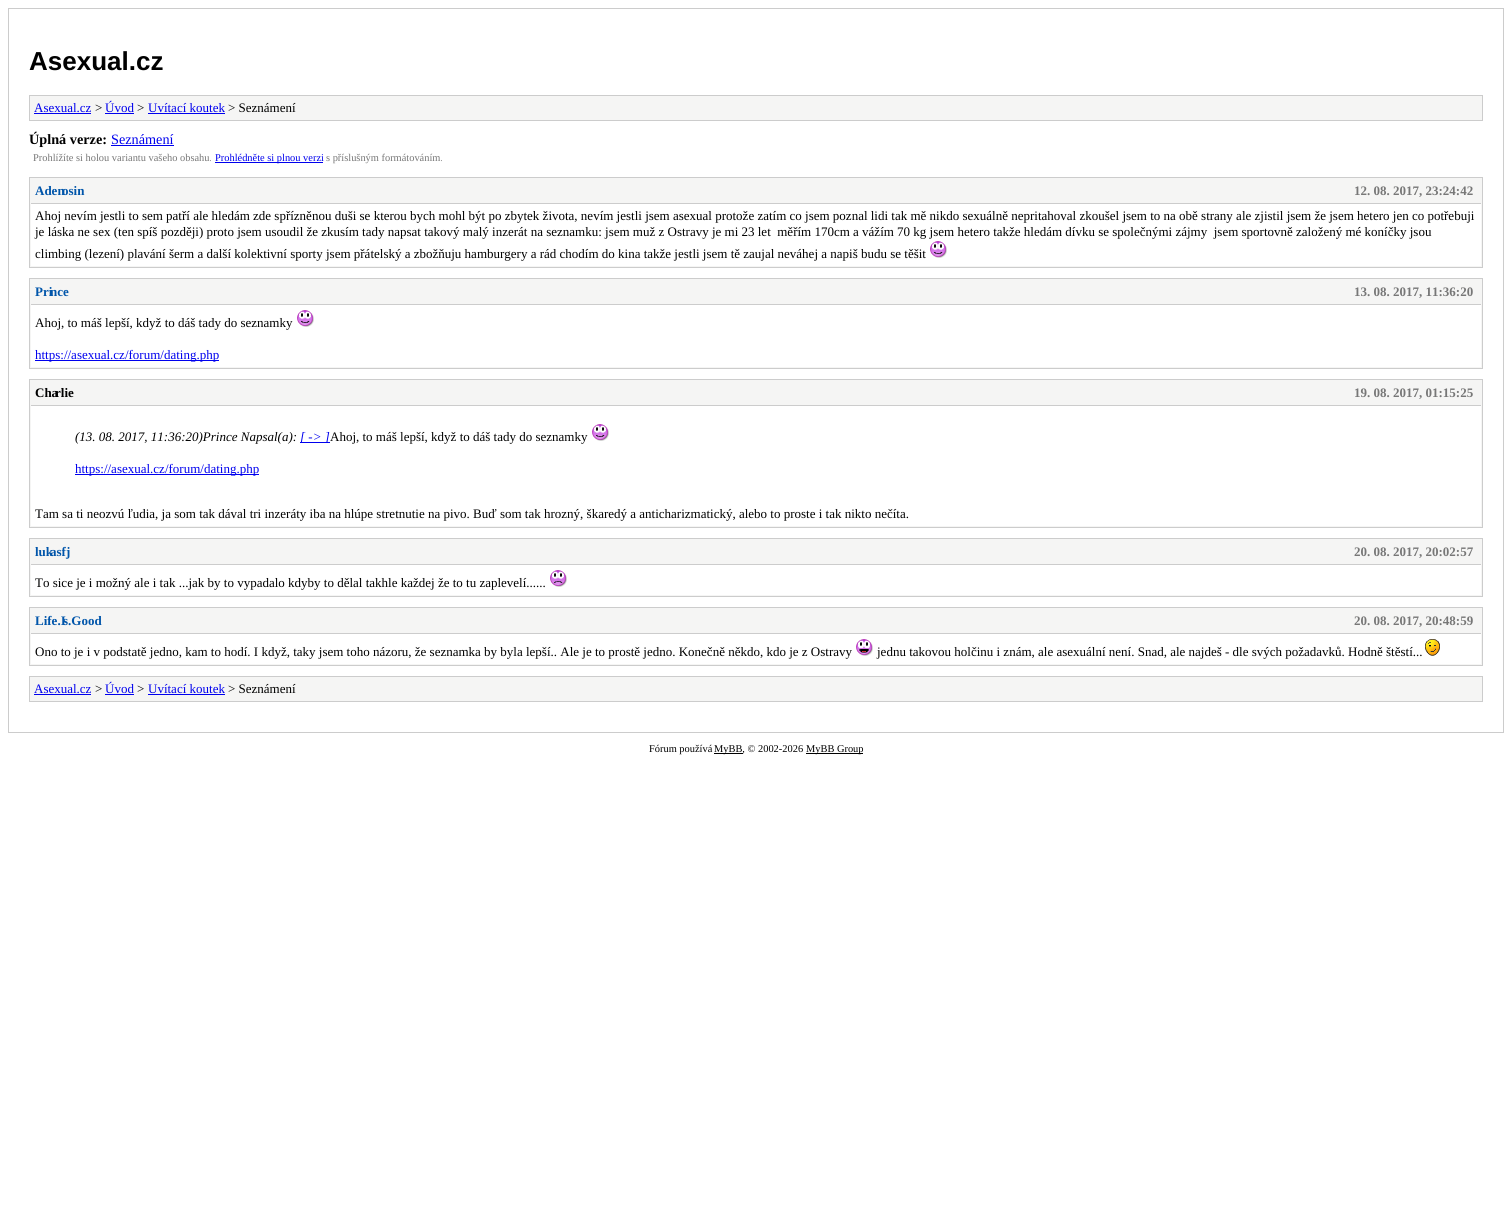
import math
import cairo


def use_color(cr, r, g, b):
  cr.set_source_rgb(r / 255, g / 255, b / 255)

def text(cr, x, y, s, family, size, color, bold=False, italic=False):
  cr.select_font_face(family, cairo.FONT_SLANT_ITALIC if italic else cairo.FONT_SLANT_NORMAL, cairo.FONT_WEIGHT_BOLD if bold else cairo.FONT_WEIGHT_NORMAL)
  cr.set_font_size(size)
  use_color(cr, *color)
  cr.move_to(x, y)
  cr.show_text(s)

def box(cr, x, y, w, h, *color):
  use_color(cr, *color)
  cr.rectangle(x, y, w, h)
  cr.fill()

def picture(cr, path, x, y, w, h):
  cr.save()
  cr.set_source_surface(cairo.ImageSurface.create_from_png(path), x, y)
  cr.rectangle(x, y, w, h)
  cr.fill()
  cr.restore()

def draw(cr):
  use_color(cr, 255, 255, 255)
  cr.paint()
  cr.rectangle(8.5, 8.5, 1495, 724)
  use_color(cr, 204, 204, 204)
  cr.set_line_width(1)
  cr.stroke()
  use_color(cr, 245, 245, 244)
  cr.rectangle(29.5, 95.5, 1453, 25)
  cr.fill_preserve()
  use_color(cr, 204, 204, 204)
  cr.stroke()
  box(cr, 34, 113, 57, 1, 0, 0, 238)
  box(cr, 105, 113, 29, 1, 0, 0, 238)
  box(cr, 148, 113, 77, 1, 0, 0, 238)
  box(cr, 111, 145, 63, 1, 0, 0, 238)
  box(cr, 215, 162, 108, 1, 0, 0, 238)
  use_color(cr, 245, 245, 244)
  cr.rectangle(29.5, 177.5, 1453, 90)
  cr.fill_preserve()
  use_color(cr, 204, 204, 204)
  cr.stroke()
  box(cr, 31, 203, 1450, 1, 204, 204, 204)
  box(cr, 31, 204, 1450, 62, 255, 255, 255)
  picture(cr, "img_01.png", 930, 241, 17, 17)
  use_color(cr, 245, 245, 244)
  cr.rectangle(29.5, 278.5, 1453, 90)
  cr.fill_preserve()
  use_color(cr, 204, 204, 204)
  cr.stroke()
  box(cr, 31, 304, 1450, 1, 204, 204, 204)
  box(cr, 31, 305, 1450, 62, 255, 255, 255)
  picture(cr, "img_01.png", 297, 310, 17, 17)
  box(cr, 35, 360, 184, 1, 0, 0, 238)
  use_color(cr, 245, 245, 244)
  cr.rectangle(29.5, 379.5, 1453, 148)
  cr.fill_preserve()
  use_color(cr, 204, 204, 204)
  cr.stroke()
  box(cr, 31, 405, 1450, 1, 204, 204, 204)
  box(cr, 31, 406, 1450, 120, 255, 255, 255)
  box(cr, 300, 442, 30, 1, 0, 0, 238)
  picture(cr, "img_01.png", 592, 424, 17, 17)
  box(cr, 75, 474, 184, 1, 0, 0, 238)
  use_color(cr, 245, 245, 244)
  cr.rectangle(29.5, 538.5, 1453, 58)
  cr.fill_preserve()
  use_color(cr, 204, 204, 204)
  cr.stroke()
  box(cr, 31, 564, 1450, 1, 204, 204, 204)
  box(cr, 31, 565, 1450, 30, 255, 255, 255)
  picture(cr, "img_02.png", 550, 570, 17, 17)
  use_color(cr, 245, 245, 244)
  cr.rectangle(29.5, 607.5, 1453, 58)
  cr.fill_preserve()
  use_color(cr, 204, 204, 204)
  cr.stroke()
  box(cr, 31, 633, 1450, 1, 204, 204, 204)
  box(cr, 31, 634, 1450, 30, 255, 255, 255)
  picture(cr, "img_03.png", 856, 639, 17, 17)
  picture(cr, "img_04.png", 1425, 639, 15, 17)
  use_color(cr, 245, 245, 244)
  cr.rectangle(29.5, 676.5, 1453, 25)
  cr.fill_preserve()
  use_color(cr, 204, 204, 204)
  cr.stroke()
  box(cr, 34, 694, 57, 1, 0, 0, 238)
  box(cr, 105, 694, 29, 1, 0, 0, 238)
  box(cr, 148, 694, 77, 1, 0, 0, 238)
  box(cr, 714, 753, 29, 1, 0, 0, 0)
  box(cr, 806, 753, 57, 1, 0, 0, 0)
  text(cr, 29, 70, "Asexual.cz", "Liberation Sans", 26, (0, 0, 0), bold=True)
  text(cr, 34, 112, "Asexual.cz", "Liberation Serif", 13, (0, 0, 238))
  text(cr, 95, 112, ">", "Liberation Serif", 13, (0, 0, 0))
  text(cr, 105, 112, "Úvod", "Liberation Serif", 13, (0, 0, 238))
  text(cr, 137, 112, ">", "Liberation Serif", 13, (0, 0, 0))
  text(cr, 148, 112, "Uvítací koutek", "Liberation Serif", 13, (0, 0, 238))
  text(cr, 228, 112, "> Seznámení", "Liberation Serif", 13, (0, 0, 0))
  text(cr, 29, 144, "Úplná verze:", "Liberation Serif", 14.25, (0, 0, 0), bold=True)
  text(cr, 111, 144, "Seznámení", "Liberation Serif", 14.25, (0, 0, 238))
  text(cr, 33, 161, "Prohlížíte si holou variantu vašeho obsahu.", "Liberation Serif", 10.4, (119, 119, 119))
  text(cr, 215, 161, "Prohlédněte si plnou verzi", "Liberation Serif", 10.4, (0, 0, 238))
  text(cr, 326, 161, "s příslušným formátováním.", "Liberation Serif", 10.4, (119, 119, 119))
  text(cr, 35, 195, "Aden", "Liberation Serif", 13, (0, 85, 170), bold=True)
  text(cr, 62, 195, "osin", "Liberation Serif", 13, (0, 85, 170), bold=True)
  text(cr, 1354, 195, "12. 08. 2017, 23:24:42", "Liberation Serif", 13, (119, 119, 119), bold=True)
  text(cr, 35, 220, "Ahoj nevím jestli to sem patří ale hledám zde spřízněnou duši se kterou bych mohl být po zbytek života, nevím jestli jsem asexual protože zatím co jsem poznal lidi tak mě nikdo sexuálně nepritahoval zkoušel jsem to na obě strany ale zjistil jsem že jsem hetero jen co potřebuji", "Liberation Serif", 13, (0, 0, 0))
  text(cr, 35, 236, "je láska ne sex (ten spíš později) proto jsem usoudil že zkusím tady napsat takový malý inzerát na seznamku: jsem muž z Ostravy je mi 23 let  měřím 170cm a vážím 70 kg jsem hetero takže hledám dívku se společnými zájmy  jsem sportovně založený mé koníčky jsou", "Liberation Serif", 13, (0, 0, 0))
  text(cr, 35, 258, "climbing (lezení) plavání šerm a další kolektivní sporty jsem přátelský a zbožňuju hamburgery a rád chodím do kina takže jestli jsem tě zaujal neváhej a napiš budu se těšit", "Liberation Serif", 13, (0, 0, 0))
  text(cr, 35, 296, "Pri", "Liberation Serif", 13, (0, 85, 170), bold=True)
  text(cr, 50, 296, "nce", "Liberation Serif", 13, (0, 85, 170), bold=True)
  text(cr, 1354, 296, "13. 08. 2017, 11:36:20", "Liberation Serif", 13, (119, 119, 119), bold=True)
  text(cr, 35, 327, "Ahoj, to máš lepší, když to dáš tady do seznamky", "Liberation Serif", 13, (0, 0, 0))
  text(cr, 35, 359, "https://asexual.cz/forum/dating.php", "Liberation Serif", 13, (0, 0, 238))
  text(cr, 35, 397, "Cha", "Liberation Serif", 13, (0, 0, 0), bold=True)
  text(cr, 55, 397, "rlie", "Liberation Serif", 13, (0, 0, 0), bold=True)
  text(cr, 1354, 397, "19. 08. 2017, 01:15:25", "Liberation Serif", 13, (119, 119, 119), bold=True)
  text(cr, 75, 441, "(13. 08. 2017, 11:36:20)Prince Napsal(a):", "Liberation Serif", 13, (0, 0, 0), italic=True)
  text(cr, 300, 441, "[ -> ]", "Liberation Serif", 13, (0, 0, 238), italic=True)
  text(cr, 330, 441, "Ahoj, to máš lepší, když to dáš tady do seznamky", "Liberation Serif", 13, (0, 0, 0))
  text(cr, 75, 473, "https://asexual.cz/forum/dating.php", "Liberation Serif", 13, (0, 0, 238))
  text(cr, 35, 518, "Tam sa ti neozvú ľudia, ja som tak dával tri inzeráty iba na hlúpe stretnutie na pivo. Buď som tak hrozný, škaredý a anticharizmatický, alebo to proste i tak nikto nečíta.", "Liberation Serif", 13, (0, 0, 0))
  text(cr, 35, 556, "luk", "Liberation Serif", 13, (0, 85, 170), bold=True)
  text(cr, 50, 556, "asfj", "Liberation Serif", 13, (0, 85, 170), bold=True)
  text(cr, 1354, 556, "20. 08. 2017, 20:02:57", "Liberation Serif", 13, (119, 119, 119), bold=True)
  text(cr, 35, 587, "To sice je i možný ale i tak ...jak by to vypadalo kdyby to dělal takhle každej že to tu zaplevelí......", "Liberation Serif", 13, (0, 0, 0))
  text(cr, 35, 625, "Life.I", "Liberation Serif", 13, (0, 85, 170), bold=True)
  text(cr, 63, 625, "s.Good", "Liberation Serif", 13, (0, 85, 170), bold=True)
  text(cr, 1354, 625, "20. 08. 2017, 20:48:59", "Liberation Serif", 13, (119, 119, 119), bold=True)
  text(cr, 35, 656, "Ono to je i v podstatě jedno, kam to hodí. I když, taky jsem toho názoru, že seznamka by byla lepší.. Ale je to prostě jedno. Konečně někdo, kdo je z Ostravy", "Liberation Serif", 13, (0, 0, 0))
  text(cr, 877, 656, "jednu takovou holčinu i znám, ale asexuální není. Snad, ale najdeš - dle svých požadavků. Hodně štěstí...", "Liberation Serif", 13, (0, 0, 0))
  text(cr, 34, 693, "Asexual.cz", "Liberation Serif", 13, (0, 0, 238))
  text(cr, 95, 693, ">", "Liberation Serif", 13, (0, 0, 0))
  text(cr, 105, 693, "Úvod", "Liberation Serif", 13, (0, 0, 238))
  text(cr, 137, 693, ">", "Liberation Serif", 13, (0, 0, 0))
  text(cr, 148, 693, "Uvítací koutek", "Liberation Serif", 13, (0, 0, 238))
  text(cr, 228, 693, "> Seznámení", "Liberation Serif", 13, (0, 0, 0))
  text(cr, 649, 752, "Fórum používá", "Liberation Serif", 10.4, (0, 0, 0))
  text(cr, 714, 752, "MyBB, © 2002-2026", "Liberation Serif", 10.4, (0, 0, 0))
  text(cr, 806, 752, "MyBB Group", "Liberation Serif", 10.4, (0, 0, 0))


surface = cairo.ImageSurface(cairo.FORMAT_RGB24, 1512, 1208)
cr = cairo.Context(surface)
options = cairo.FontOptions()
options.set_hint_metrics(cairo.HINT_METRICS_OFF)
options.set_hint_style(cairo.HINT_STYLE_NONE)
cr.set_font_options(options)
cr.set_miter_limit(4)
draw(cr)
surface.write_to_png("out.png")
